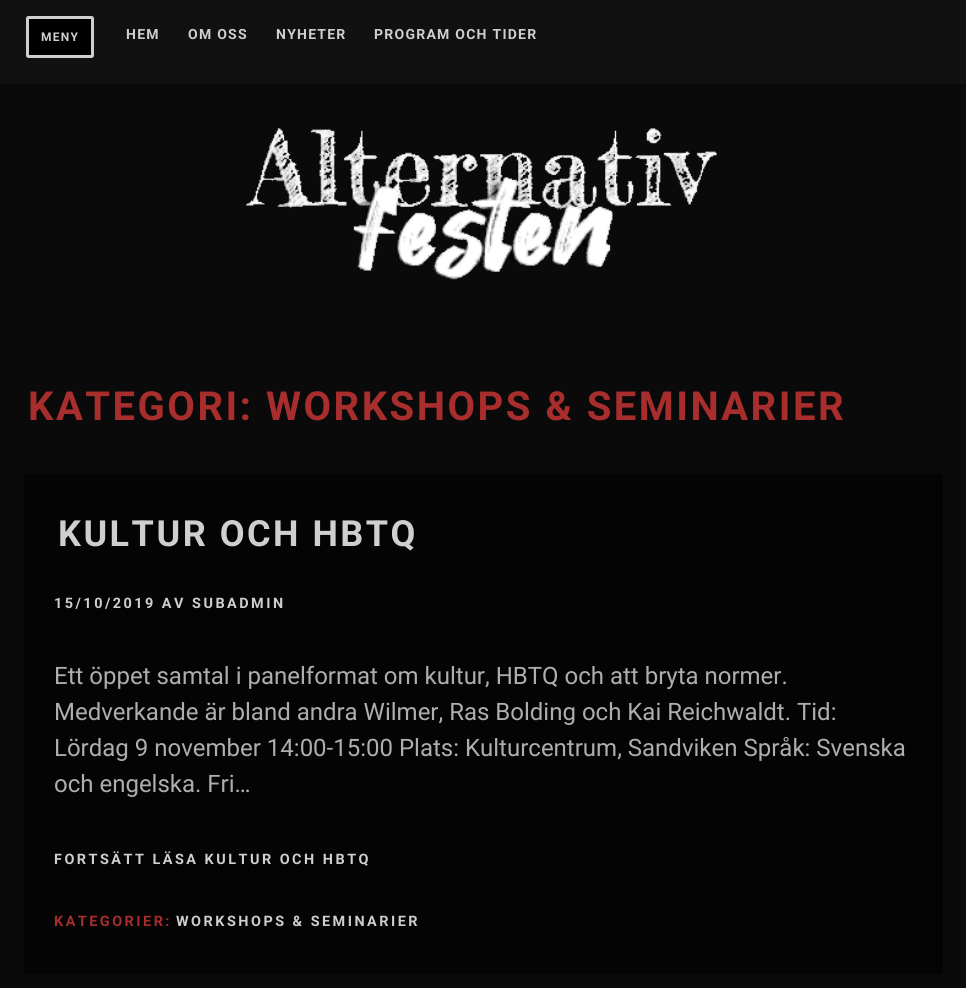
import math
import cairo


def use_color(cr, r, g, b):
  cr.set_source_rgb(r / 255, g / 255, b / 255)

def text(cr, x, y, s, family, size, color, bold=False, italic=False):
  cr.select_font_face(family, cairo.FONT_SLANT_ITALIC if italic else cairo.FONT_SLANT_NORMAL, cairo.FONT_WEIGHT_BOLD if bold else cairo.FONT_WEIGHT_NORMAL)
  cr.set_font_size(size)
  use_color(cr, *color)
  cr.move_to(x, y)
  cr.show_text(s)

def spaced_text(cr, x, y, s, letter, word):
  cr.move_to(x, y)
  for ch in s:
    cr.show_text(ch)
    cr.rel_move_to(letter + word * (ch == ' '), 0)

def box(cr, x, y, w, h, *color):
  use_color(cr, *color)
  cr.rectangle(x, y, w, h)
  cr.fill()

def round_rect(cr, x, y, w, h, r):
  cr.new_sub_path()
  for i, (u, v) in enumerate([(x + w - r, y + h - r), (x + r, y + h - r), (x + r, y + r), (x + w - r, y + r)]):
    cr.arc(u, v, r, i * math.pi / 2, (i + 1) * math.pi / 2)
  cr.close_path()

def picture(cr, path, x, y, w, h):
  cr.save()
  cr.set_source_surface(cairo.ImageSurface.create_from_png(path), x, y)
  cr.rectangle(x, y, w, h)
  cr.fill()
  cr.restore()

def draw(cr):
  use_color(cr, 10, 10, 10)
  cr.paint()
  box(cr, 0, 0, 966, 84, 17, 17, 17)
  use_color(cr, 0, 0, 0)
  round_rect(cr, 27.5, 17.5, 65, 39, 1)
  cr.fill_preserve()
  use_color(cr, 207, 207, 207)
  cr.set_line_width(3)
  cr.stroke()
  picture(cr, "img_01.png", 245, 128, 472, 152)
  use_color(cr, 4, 4, 4)
  round_rect(cr, 24, 474, 919, 500, 2.5)
  cr.fill()
  cr.select_font_face("Roboto", cairo.FONT_SLANT_NORMAL, cairo.FONT_WEIGHT_BOLD)
  cr.set_font_size(12)
  use_color(cr, 207, 207, 207)
  spaced_text(cr, 41, 41, "MENY", 1.25, 0)
  cr.set_font_size(14)
  spaced_text(cr, 126, 39, "HEM", 1.25, 0)
  spaced_text(cr, 188, 39, "OM OSS", 1.25, 0)
  spaced_text(cr, 276, 39, "NYHETER", 1.25, 0)
  spaced_text(cr, 374, 39, "PROGRAM OCH TIDER", 1.25, 0)
  cr.set_font_size(40)
  use_color(cr, 168, 45, 45)
  spaced_text(cr, 28, 420, "KATEGORI: WORKSHOPS & SEMINARIER", 2.5, 0)
  cr.set_font_size(36)
  use_color(cr, 207, 207, 207)
  spaced_text(cr, 58, 546, "KULTUR OCH HBTQ", 2.5, 0)
  cr.set_font_size(14.4)
  spaced_text(cr, 54, 608, "15/10/2019 AV SUBADMIN", 2.5, 0)
  text(cr, 54, 684, "Ett öppet samtal i panelformat om kultur, HBTQ och att bryta normer.", "Roboto", 24, (174, 174, 174))
  text(cr, 54, 720, "Medverkande är bland andra Wilmer, Ras Bolding och Kai Reichwaldt. Tid:", "Roboto", 24, (174, 174, 174))
  text(cr, 54, 756, "Lördag 9 november 14:00-15:00 Plats: Kulturcentrum, Sandviken Språk: Svenska", "Roboto", 24, (174, 174, 174))
  text(cr, 54, 792, "och engelska. Fri…", "Roboto", 24, (174, 174, 174))
  cr.select_font_face("Roboto", cairo.FONT_SLANT_NORMAL, cairo.FONT_WEIGHT_BOLD)
  cr.set_font_size(14.4)
  use_color(cr, 207, 207, 207)
  spaced_text(cr, 54, 864, "FORTSÄTT LÄSA KULTUR OCH HBTQ", 2.5, 0)
  use_color(cr, 168, 45, 45)
  spaced_text(cr, 54, 926, "KATEGORIER:", 2.5, 0)
  use_color(cr, 207, 207, 207)
  spaced_text(cr, 176, 926, "WORKSHOPS & SEMINARIER", 2.5, 0)


surface = cairo.ImageSurface(cairo.FORMAT_RGB24, 966, 988)
cr = cairo.Context(surface)
options = cairo.FontOptions()
options.set_hint_metrics(cairo.HINT_METRICS_OFF)
options.set_hint_style(cairo.HINT_STYLE_NONE)
cr.set_font_options(options)
cr.set_miter_limit(4)
draw(cr)
surface.write_to_png("out.png")
